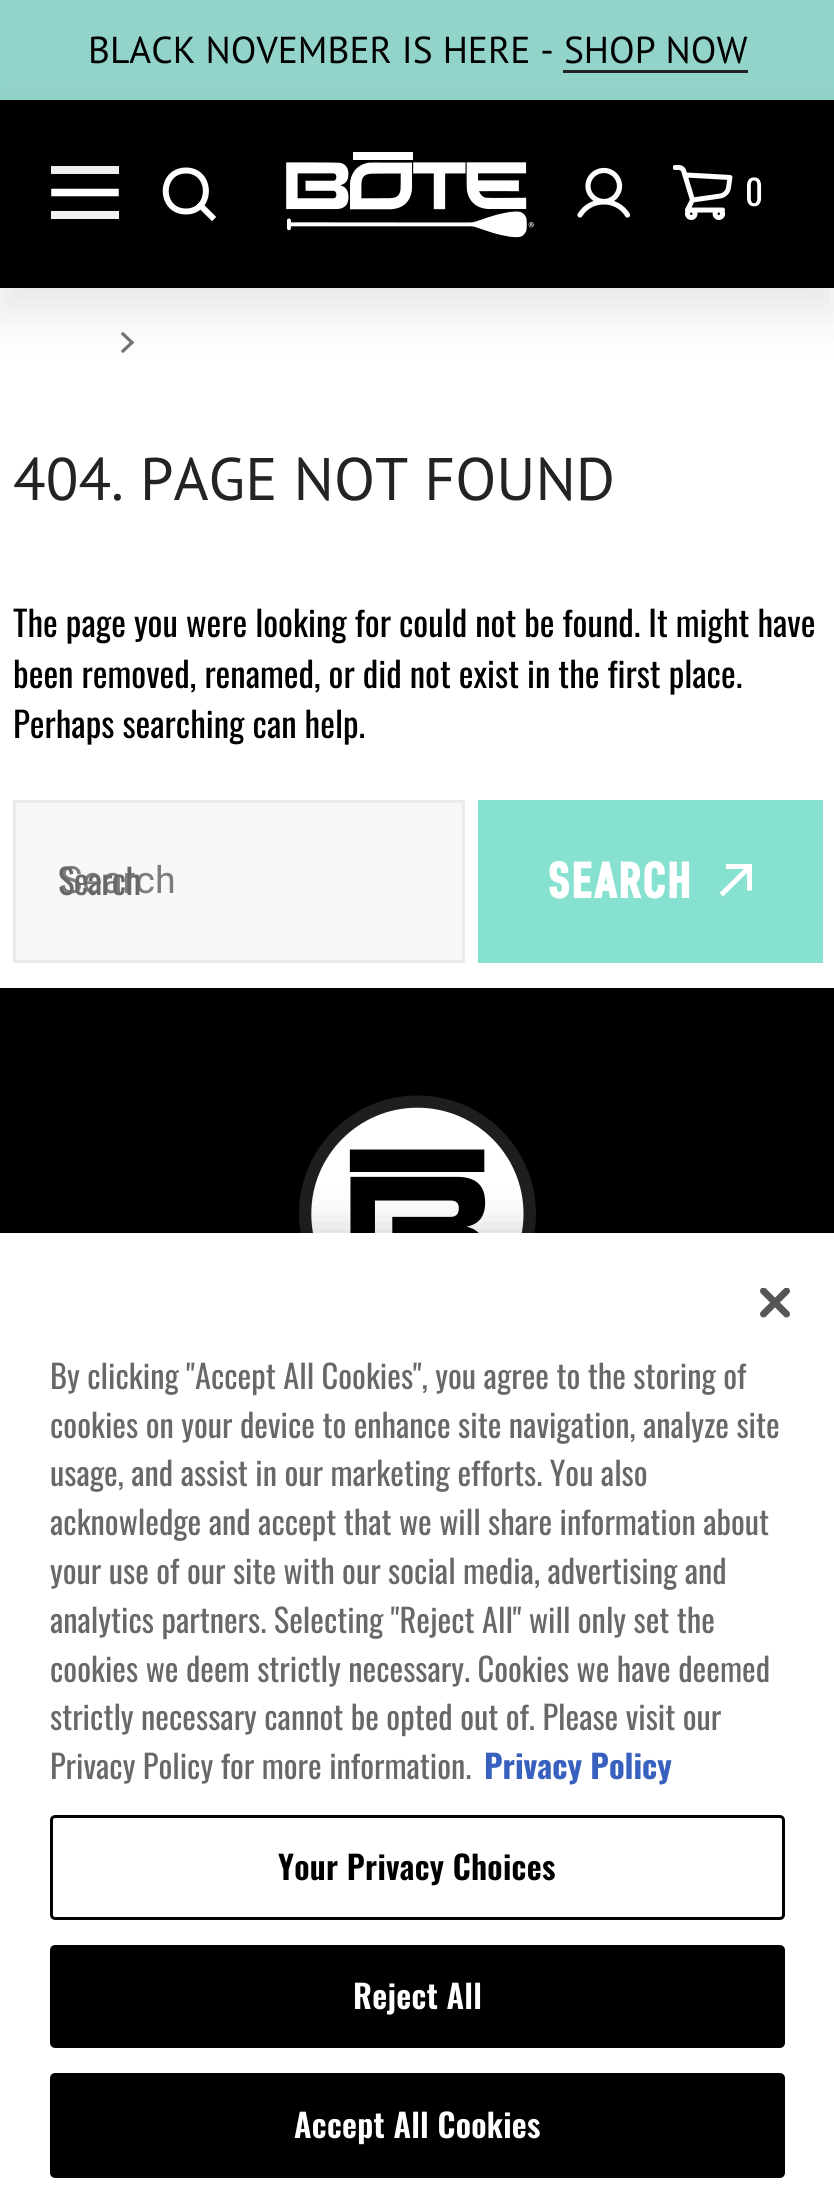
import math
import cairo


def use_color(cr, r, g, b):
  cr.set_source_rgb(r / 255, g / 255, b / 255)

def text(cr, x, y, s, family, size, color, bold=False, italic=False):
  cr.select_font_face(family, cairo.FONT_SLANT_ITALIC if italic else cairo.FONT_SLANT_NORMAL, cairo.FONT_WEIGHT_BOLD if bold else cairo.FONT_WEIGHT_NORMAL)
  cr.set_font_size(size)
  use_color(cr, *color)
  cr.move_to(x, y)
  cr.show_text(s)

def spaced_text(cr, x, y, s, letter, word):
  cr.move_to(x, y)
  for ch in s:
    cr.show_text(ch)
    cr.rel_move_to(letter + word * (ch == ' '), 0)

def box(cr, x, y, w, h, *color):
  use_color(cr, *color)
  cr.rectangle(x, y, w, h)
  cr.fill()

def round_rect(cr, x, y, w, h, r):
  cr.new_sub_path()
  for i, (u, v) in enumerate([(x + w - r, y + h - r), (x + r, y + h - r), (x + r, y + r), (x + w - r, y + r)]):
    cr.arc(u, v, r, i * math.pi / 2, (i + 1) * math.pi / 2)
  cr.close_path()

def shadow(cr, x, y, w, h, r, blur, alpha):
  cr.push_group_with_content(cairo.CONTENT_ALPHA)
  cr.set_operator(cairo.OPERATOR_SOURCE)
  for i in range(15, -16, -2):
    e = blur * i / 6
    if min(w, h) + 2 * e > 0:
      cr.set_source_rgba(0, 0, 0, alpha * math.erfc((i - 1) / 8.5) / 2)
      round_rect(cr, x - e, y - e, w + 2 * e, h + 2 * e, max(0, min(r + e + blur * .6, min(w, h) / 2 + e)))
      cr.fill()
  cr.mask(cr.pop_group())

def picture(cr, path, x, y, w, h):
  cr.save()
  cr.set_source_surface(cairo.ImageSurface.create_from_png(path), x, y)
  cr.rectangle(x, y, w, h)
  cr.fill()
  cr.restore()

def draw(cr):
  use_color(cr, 255, 255, 255)
  cr.paint()
  box(cr, 0, 0, 834, 100, 146, 211, 202)
  box(cr, 563, 70, 185, 3, 35, 35, 34)
  cr.new_path()
  cr.move_to(123, 334)
  cr.line_to(132, 342.5)
  cr.line_to(123, 351)
  use_color(cr, 115, 115, 114)
  cr.set_line_width(3.2)
  cr.set_line_cap(cairo.LINE_CAP_SQUARE)
  cr.stroke()
  use_color(cr, 0, 0, 0)
  shadow(cr, 0, 125, 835, 188, 0, 25, 0.1)
  box(cr, 0, 100, 834, 188, 0, 0, 0)
  cr.new_path()
  cr.move_to(55, 192.5)
  cr.line_to(115, 192.5)
  use_color(cr, 255, 255, 255)
  cr.set_line_width(7.5)
  cr.set_line_join(cairo.LINE_JOIN_ROUND)
  cr.stroke()
  box(cr, 51, 166, 68, 8, 239, 239, 239)
  box(cr, 51, 211, 68, 8, 239, 239, 239)
  cr.new_path()
  cr.move_to(186, 211.5)
  cr.curve_to(212.5, 211.5, 212.5, 170.5, 186, 170.5)
  cr.curve_to(159, 170.5, 159, 211.5, 186, 211.5)
  cr.close_path()
  use_color(cr, 255, 255, 255)
  cr.set_line_width(6)
  cr.set_line_cap(cairo.LINE_CAP_ROUND)
  cr.stroke()
  cr.new_path()
  cr.move_to(200.5, 205.5)
  cr.line_to(212, 217)
  cr.set_line_cap(cairo.LINE_CAP_SQUARE)
  cr.stroke()
  picture(cr, "img_01.png", 286, 152, 248, 86)
  cr.new_path()
  cr.move_to(604, 201.5)
  cr.curve_to(612.5, 201.5, 619.5, 194.5, 619.5, 186)
  cr.curve_to(619.5, 177.5, 612.5, 170.5, 604, 170.5)
  cr.curve_to(595, 170.5, 588, 177.5, 588, 186)
  cr.curve_to(588, 194.5, 595, 201.5, 604, 201.5)
  cr.close_path()
  cr.set_line_width(5.2)
  cr.set_line_cap(cairo.LINE_CAP_BUTT)
  cr.set_line_join(cairo.LINE_JOIN_MITER)
  cr.stroke()
  cr.new_path()
  cr.move_to(580, 215)
  cr.curve_to(590.5, 197.5, 617, 197.5, 627.5, 215)
  cr.set_line_cap(cairo.LINE_CAP_ROUND)
  cr.set_line_join(cairo.LINE_JOIN_ROUND)
  cr.stroke()
  picture(cr, "img_02.png", 673, 165, 60, 55)
  use_color(cr, 248, 248, 248)
  cr.rectangle(14.5, 801.5, 449, 160)
  cr.fill_preserve()
  use_color(cr, 235, 235, 235)
  cr.set_line_width(3)
  cr.set_line_cap(cairo.LINE_CAP_BUTT)
  cr.set_line_join(cairo.LINE_JOIN_MITER)
  cr.stroke()
  box(cr, 478, 800, 345, 163, 135, 225, 209)
  cr.new_path()
  cr.move_to(723, 893)
  cr.line_to(748, 868.5)
  cr.move_to(728.5, 866.5)
  cr.line_to(749.5, 866.5)
  cr.line_to(749.5, 888)
  use_color(cr, 255, 255, 255)
  cr.set_line_width(5)
  cr.set_line_cap(cairo.LINE_CAP_SQUARE)
  cr.stroke()
  box(cr, 0, 988, 834, 245, 0, 0, 0)
  picture(cr, "img_03.png", 299, 1095, 237, 138)
  use_color(cr, 0, 0, 0)
  shadow(cr, 0, 1233, 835, 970, 0, 22.5, 0.2)
  box(cr, 0, 1233, 834, 968, 255, 255, 255)
  picture(cr, "img_04.png", 760, 1288, 30, 30)
  round_rect(cr, 51.5, 1816.5, 732, 102, 3.5)
  use_color(cr, 0, 0, 0)
  cr.set_line_width(3)
  cr.set_line_cap(cairo.LINE_CAP_BUTT)
  cr.stroke()
  round_rect(cr, 51.5, 1946.5, 732, 100, 3.5)
  cr.fill_preserve()
  cr.stroke()
  round_rect(cr, 51.5, 2074.5, 732, 102, 3.5)
  cr.fill_preserve()
  cr.stroke()
  text(cr, 88, 63, "BLACK NOVEMBER IS HERE - SHOP NOW", "PT Sans", 37.5, (0, 0, 0))
  text(cr, 745, 206, "0", "Oswald", 35, (255, 255, 255))
  text(cr, 13, 500, "404. PAGE NOT FOUND", "PT Sans", 60, (35, 35, 34))
  text(cr, 13, 637, "The page you were looking for could not be found. It might have", "Oswald", 35, (0, 0, 0))
  text(cr, 13, 688, "been removed, renamed, or did not exist in the first place.", "Oswald", 35, (0, 0, 0))
  text(cr, 13, 738, "Perhaps searching can help.", "Oswald", 35, (0, 0, 0))
  text(cr, 60, 893, "Search", "Roboto", 37.5, (124, 124, 124))
  cr.select_font_face("Oswald")
  cr.set_font_size(35)
  use_color(cr, 104, 104, 104)
  spaced_text(cr, 58, 895, "Search", -0.75, 0)
  cr.select_font_face("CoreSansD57", cairo.FONT_SLANT_NORMAL, cairo.FONT_WEIGHT_BOLD)
  cr.set_font_size(50)
  use_color(cr, 255, 255, 255)
  spaced_text(cr, 548, 898, "SEARCH", 2.5, 0)
  text(cr, 50, 1389, "By clicking \"Accept All Cookies\", you agree to the storing of", "Oswald", 32.5, (104, 104, 104))
  text(cr, 50, 1438, "cookies on your device to enhance site navigation, analyze site", "Oswald", 32.5, (104, 104, 104))
  text(cr, 50, 1486, "usage, and assist in our marketing efforts. You also", "Oswald", 32.5, (104, 104, 104))
  text(cr, 50, 1535, "acknowledge and accept that we will share information about", "Oswald", 32.5, (104, 104, 104))
  text(cr, 50, 1584, "your use of our site with our social media, advertising and", "Oswald", 32.5, (104, 104, 104))
  text(cr, 50, 1633, "analytics partners. Selecting \"Reject All\" will only set the", "Oswald", 32.5, (104, 104, 104))
  text(cr, 50, 1682, "cookies we deem strictly necessary. Cookies we have deemed", "Oswald", 32.5, (104, 104, 104))
  text(cr, 50, 1730, "strictly necessary cannot be opted out of. Please visit our", "Oswald", 32.5, (104, 104, 104))
  text(cr, 50, 1779, "Privacy Policy for more information.", "Oswald", 32.5, (104, 104, 104))
  text(cr, 484, 1779, "Privacy Policy", "Oswald", 32.5, (56, 96, 190), bold=True)
  cr.select_font_face("Oswald SemiBold")
  use_color(cr, 0, 0, 0)
  spaced_text(cr, 278, 1880, "Your Privacy Choices", 0.3, 0)
  use_color(cr, 255, 255, 255)
  spaced_text(cr, 353, 2009, "Reject All", 0.3, 0)
  spaced_text(cr, 294, 2138, "Accept All Cookies", 0.3, 0)


surface = cairo.ImageSurface(cairo.FORMAT_RGB24, 834, 2201)
cr = cairo.Context(surface)
options = cairo.FontOptions()
options.set_hint_metrics(cairo.HINT_METRICS_OFF)
options.set_hint_style(cairo.HINT_STYLE_NONE)
cr.set_font_options(options)
cr.set_miter_limit(4)
draw(cr)
surface.write_to_png("out.png")
